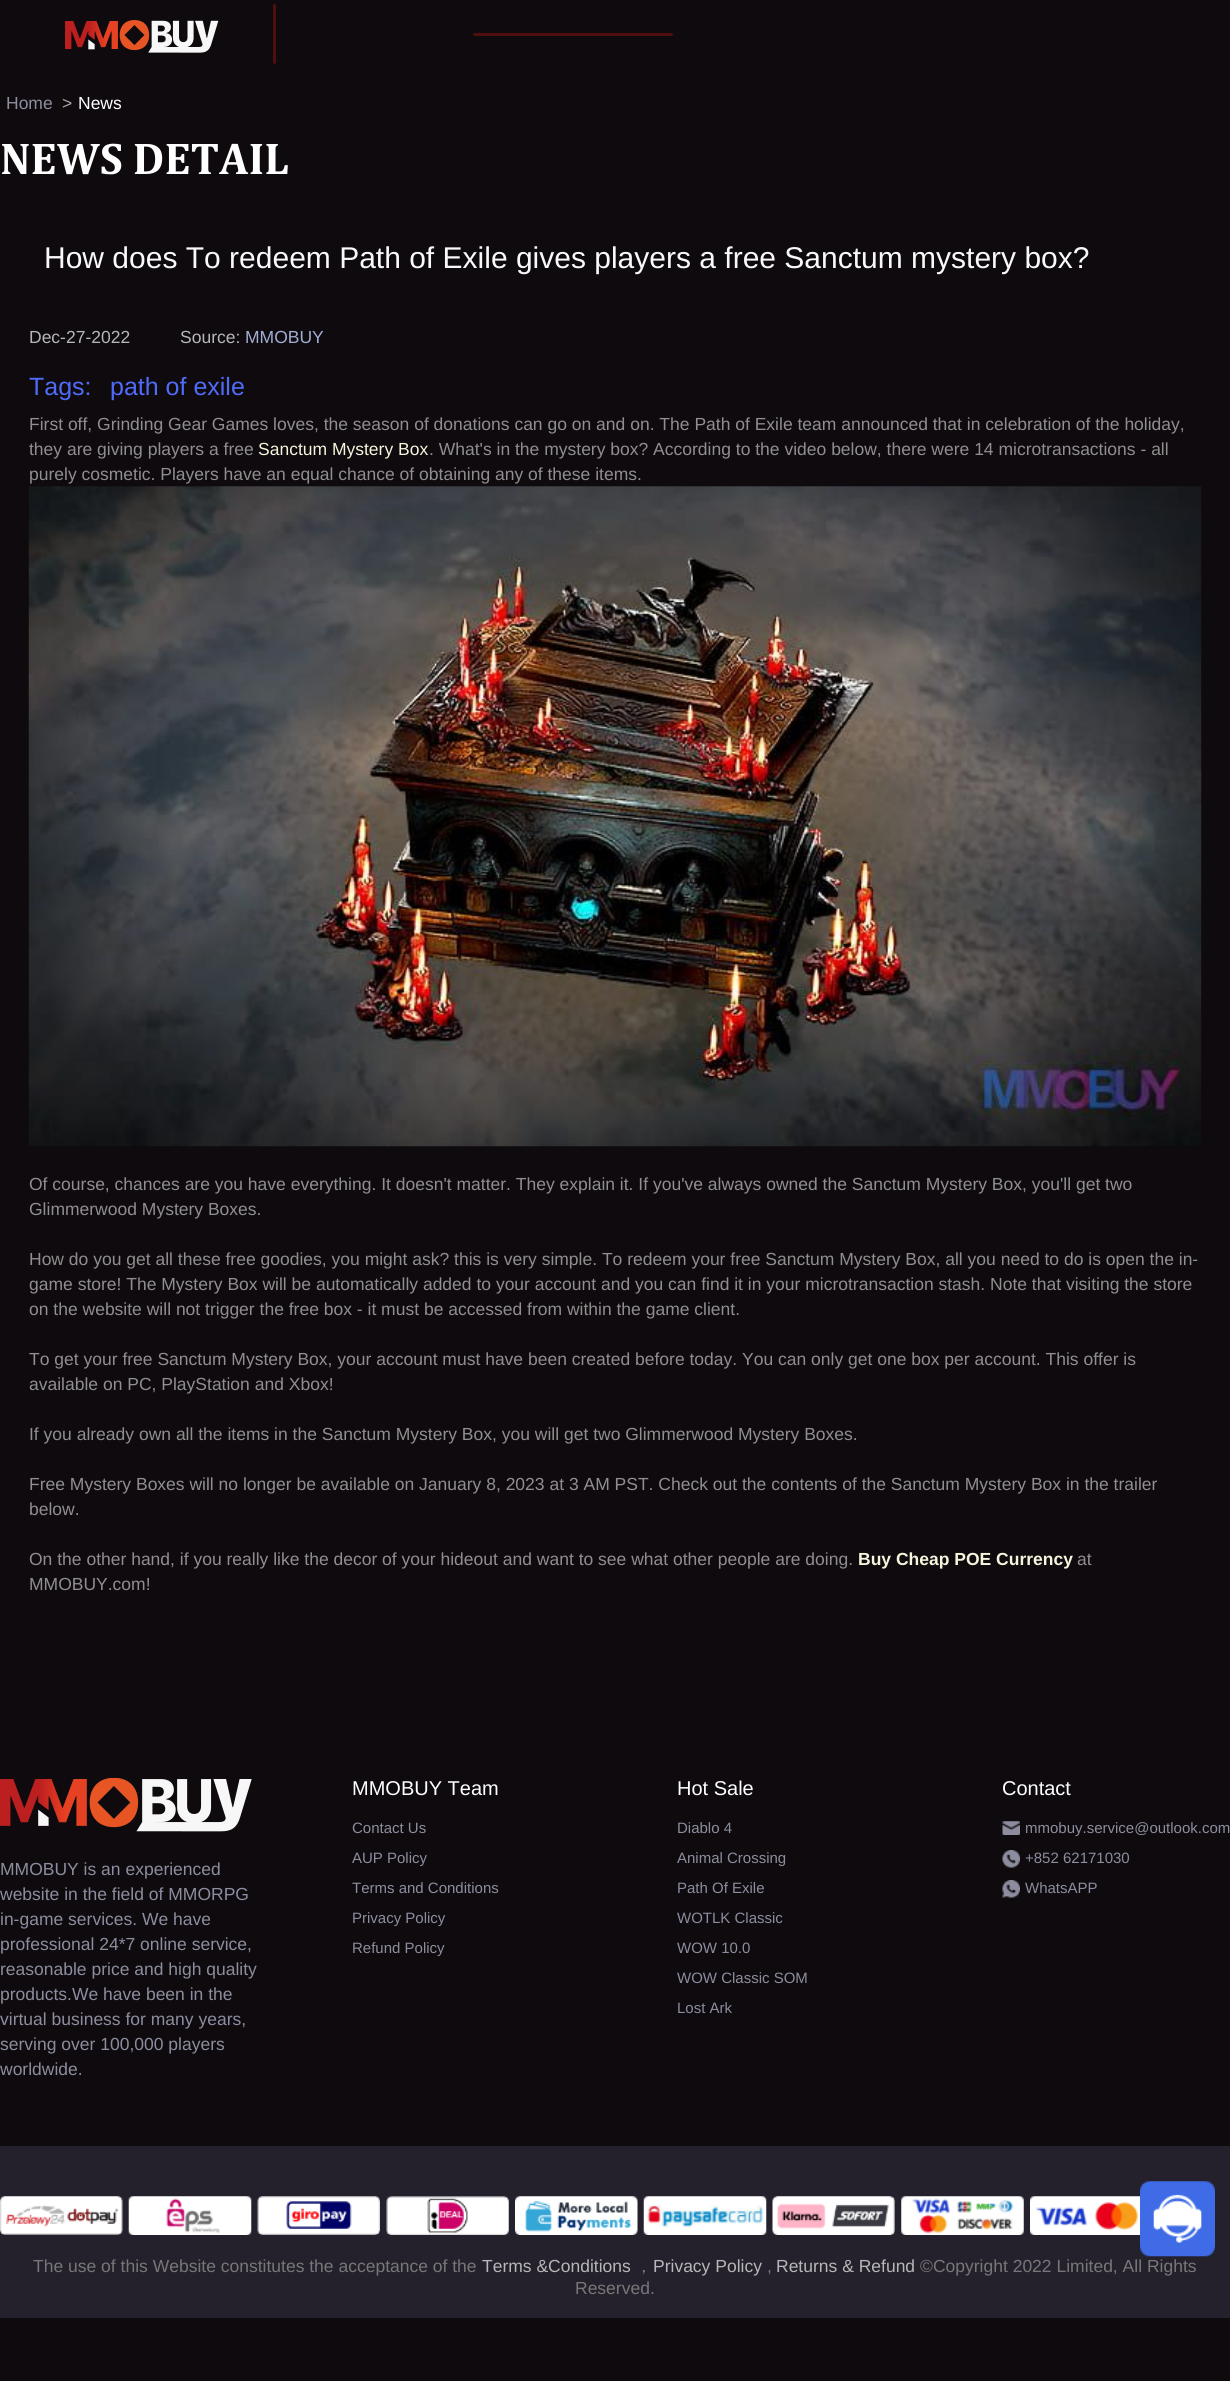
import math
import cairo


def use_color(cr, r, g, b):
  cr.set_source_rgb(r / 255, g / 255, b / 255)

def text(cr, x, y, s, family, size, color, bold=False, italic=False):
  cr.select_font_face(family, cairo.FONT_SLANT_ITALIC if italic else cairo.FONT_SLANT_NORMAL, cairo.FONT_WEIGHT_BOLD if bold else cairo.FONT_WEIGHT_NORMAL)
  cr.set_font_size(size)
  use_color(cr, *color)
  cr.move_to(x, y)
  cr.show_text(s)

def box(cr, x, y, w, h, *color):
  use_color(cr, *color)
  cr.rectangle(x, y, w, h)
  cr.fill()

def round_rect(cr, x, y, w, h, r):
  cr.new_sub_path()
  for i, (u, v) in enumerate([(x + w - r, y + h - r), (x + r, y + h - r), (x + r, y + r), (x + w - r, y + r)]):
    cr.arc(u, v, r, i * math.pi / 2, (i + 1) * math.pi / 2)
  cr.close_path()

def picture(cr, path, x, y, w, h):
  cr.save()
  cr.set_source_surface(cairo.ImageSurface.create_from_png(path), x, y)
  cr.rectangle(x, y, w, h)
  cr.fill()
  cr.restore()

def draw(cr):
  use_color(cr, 14, 10, 14)
  cr.paint()
  picture(cr, "img_01.png", 65, 20, 154, 33)
  use_color(cr, 80, 14, 15)
  round_rect(cr, 273, 4, 3, 60, 1.5)
  cr.fill()
  round_rect(cr, 473, 33, 200, 3, 1.5)
  cr.fill()
  picture(cr, "img_02.png", 28, 486, 1174, 661)
  picture(cr, "img_03.png", 0, 1778, 252, 54)
  picture(cr, "img_04.png", 1002, 1821, 18, 14)
  picture(cr, "img_05.png", 1002, 1850, 18, 18)
  picture(cr, "img_06.png", 1002, 1880, 18, 18)
  box(cr, 0, 2146, 1230, 172, 36, 33, 45)
  picture(cr, "img_07.png", 0, 2196, 123, 39)
  picture(cr, "img_08.png", 128, 2196, 124, 39)
  picture(cr, "img_09.png", 257, 2196, 123, 39)
  picture(cr, "img_10.png", 386, 2196, 123, 39)
  picture(cr, "img_11.png", 515, 2196, 123, 39)
  picture(cr, "img_12.png", 643, 2196, 124, 39)
  picture(cr, "img_13.png", 772, 2196, 123, 39)
  picture(cr, "img_14.png", 901, 2196, 123, 39)
  picture(cr, "img_15.png", 1030, 2196, 110, 39)
  picture(cr, "img_16.png", 1140, 2181, 75, 76)
  text(cr, 6, 109, "Home", "Liberation Sans", 17.5, (140, 141, 158))
  text(cr, 62, 109, ">", "Liberation Sans", 17.5, (170, 170, 170))
  text(cr, 78, 109, "News", "Liberation Sans", 17.5, (255, 255, 255))
  text(cr, 0, 174, "NEWS DETAIL", "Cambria", 45, (255, 255, 255), bold=True)
  text(cr, 44, 268, "How does To redeem Path of Exile gives players a free Sanctum mystery box?", "Liberation Sans", 30, (249, 249, 249))
  text(cr, 29, 343, "Dec-27-2022", "Liberation Sans", 17.5, (183, 183, 183))
  text(cr, 180, 343, "Source:", "Liberation Sans", 17.5, (183, 183, 183))
  text(cr, 245, 343, "MMOBUY", "Liberation Sans", 17.5, (161, 174, 212))
  text(cr, 29, 395, "Tags:", "Liberation Sans", 25, (79, 107, 248))
  text(cr, 110, 395, "path of exile", "Liberation Sans", 25, (79, 107, 248))
  text(cr, 29, 430, "First off, Grinding Gear Games loves, the season of donations can go on and on. The Path of Exile team announced that in celebration of the holiday,", "Liberation Sans", 17.5, (145, 142, 143))
  text(cr, 29, 455, "they are giving players a free", "Liberation Sans", 17.5, (145, 142, 143))
  text(cr, 258, 455, "Sanctum Mystery Box", "Liberation Sans", 17.5, (245, 245, 220))
  text(cr, 429, 455, ". What's in the mystery box? According to the video below, there were 14 microtransactions - all", "Liberation Sans", 17.5, (145, 142, 143))
  text(cr, 29, 480, "purely cosmetic. Players have an equal chance of obtaining any of these items.", "Liberation Sans", 17.5, (145, 142, 143))
  text(cr, 29, 1190, "Of course, chances are you have everything. It doesn't matter. They explain it. If you've always owned the Sanctum Mystery Box, you'll get two", "Liberation Sans", 17.5, (145, 142, 143))
  text(cr, 29, 1215, "Glimmerwood Mystery Boxes.", "Liberation Sans", 17.5, (145, 142, 143))
  text(cr, 29, 1265, "How do you get all these free goodies, you might ask? this is very simple. To redeem your free Sanctum Mystery Box, all you need to do is open the in-", "Liberation Sans", 17.5, (145, 142, 143))
  text(cr, 29, 1290, "game store! The Mystery Box will be automatically added to your account and you can find it in your microtransaction stash. Note that visiting the store", "Liberation Sans", 17.5, (145, 142, 143))
  text(cr, 29, 1315, "on the website will not trigger the free box - it must be accessed from within the game client.", "Liberation Sans", 17.5, (145, 142, 143))
  text(cr, 29, 1365, "To get your free Sanctum Mystery Box, your account must have been created before today. You can only get one box per account. This offer is", "Liberation Sans", 17.5, (145, 142, 143))
  text(cr, 29, 1390, "available on PC, PlayStation and Xbox!", "Liberation Sans", 17.5, (145, 142, 143))
  text(cr, 29, 1440, "If you already own all the items in the Sanctum Mystery Box, you will get two Glimmerwood Mystery Boxes.", "Liberation Sans", 17.5, (145, 142, 143))
  text(cr, 29, 1490, "Free Mystery Boxes will no longer be available on January 8, 2023 at 3 AM PST. Check out the contents of the Sanctum Mystery Box in the trailer", "Liberation Sans", 17.5, (145, 142, 143))
  text(cr, 29, 1515, "below.", "Liberation Sans", 17.5, (145, 142, 143))
  text(cr, 29, 1565, "On the other hand, if you really like the decor of your hideout and want to see what other people are doing.", "Liberation Sans", 17.5, (145, 142, 143))
  text(cr, 858, 1565, "Buy Cheap POE Currency", "Liberation Sans", 17.5, (245, 245, 220), bold=True)
  text(cr, 1077, 1565, "at", "Liberation Sans", 17.5, (145, 142, 143))
  text(cr, 29, 1590, "MMOBUY.com!", "Liberation Sans", 17.5, (145, 142, 143))
  text(cr, 0, 1875, "MMOBUY is an experienced", "Liberation Sans", 17.5, (140, 141, 158))
  text(cr, 0, 1900, "website in the field of MMORPG", "Liberation Sans", 17.5, (140, 141, 158))
  text(cr, 0, 1925, "in-game services. We have", "Liberation Sans", 17.5, (140, 141, 158))
  text(cr, 0, 1950, "professional 24*7 online service,", "Liberation Sans", 17.5, (140, 141, 158))
  text(cr, 0, 1975, "reasonable price and high quality", "Liberation Sans", 17.5, (140, 141, 158))
  text(cr, 0, 2000, "products.We have been in the", "Liberation Sans", 17.5, (140, 141, 158))
  text(cr, 0, 2025, "virtual business for many years,", "Liberation Sans", 17.5, (140, 141, 158))
  text(cr, 0, 2050, "serving over 100,000 players", "Liberation Sans", 17.5, (140, 141, 158))
  text(cr, 0, 2075, "worldwide.", "Liberation Sans", 17.5, (140, 141, 158))
  text(cr, 352, 1795, "MMOBUY Team", "Liberation Sans", 20, (255, 255, 255))
  text(cr, 352, 1833, "Contact Us", "Liberation Sans", 15, (140, 141, 158))
  text(cr, 352, 1863, "AUP Policy", "Liberation Sans", 15, (140, 141, 158))
  text(cr, 352, 1893, "Terms and Conditions", "Liberation Sans", 15, (140, 141, 158))
  text(cr, 352, 1923, "Privacy Policy", "Liberation Sans", 15, (140, 141, 158))
  text(cr, 352, 1953, "Refund Policy", "Liberation Sans", 15, (140, 141, 158))
  text(cr, 677, 1795, "Hot Sale", "Liberation Sans", 20, (255, 255, 255))
  text(cr, 677, 1833, "Diablo 4", "Liberation Sans", 15, (140, 141, 158))
  text(cr, 677, 1863, "Animal Crossing", "Liberation Sans", 15, (140, 141, 158))
  text(cr, 677, 1893, "Path Of Exile", "Liberation Sans", 15, (140, 141, 158))
  text(cr, 677, 1923, "WOTLK Classic", "Liberation Sans", 15, (140, 141, 158))
  text(cr, 677, 1953, "WOW 10.0", "Liberation Sans", 15, (140, 141, 158))
  text(cr, 677, 1983, "WOW Classic SOM", "Liberation Sans", 15, (140, 141, 158))
  text(cr, 677, 2013, "Lost Ark", "Liberation Sans", 15, (140, 141, 158))
  text(cr, 1002, 1795, "Contact", "Liberation Sans", 20, (255, 255, 255))
  text(cr, 1025, 1833, "mmobuy.service@outlook.com", "Liberation Sans", 15, (140, 141, 158))
  text(cr, 1025, 1863, "+852 62171030", "Liberation Sans", 15, (140, 141, 158))
  text(cr, 1025, 1893, "WhatsAPP", "Liberation Sans", 15, (140, 141, 158))
  text(cr, 33, 2272, "The use of this Website constitutes the acceptance of the", "Liberation Sans", 17.5, (119, 119, 119))
  text(cr, 482, 2272, "Terms &Conditions", "Liberation Sans", 17.5, (183, 183, 183))
  text(cr, 635, 2272, "，", "WenQuanYi Zen Hei Medium", 17.5, (119, 119, 119))
  text(cr, 653, 2272, "Privacy Policy", "Liberation Sans", 17.5, (183, 183, 183))
  text(cr, 767, 2272, ",", "Liberation Sans", 17.5, (119, 119, 119))
  text(cr, 776, 2272, "Returns & Refund", "Liberation Sans", 17.5, (183, 183, 183))
  text(cr, 920, 2272, "©Copyright 2022 Limited, All Rights", "Liberation Sans", 17.5, (119, 119, 119))
  text(cr, 575, 2294, "Reserved.", "Liberation Sans", 17.5, (119, 119, 119))


surface = cairo.ImageSurface(cairo.FORMAT_RGB24, 1230, 2381)
cr = cairo.Context(surface)
options = cairo.FontOptions()
options.set_hint_metrics(cairo.HINT_METRICS_OFF)
options.set_hint_style(cairo.HINT_STYLE_NONE)
cr.set_font_options(options)
cr.set_miter_limit(4)
draw(cr)
surface.write_to_png("out.png")
